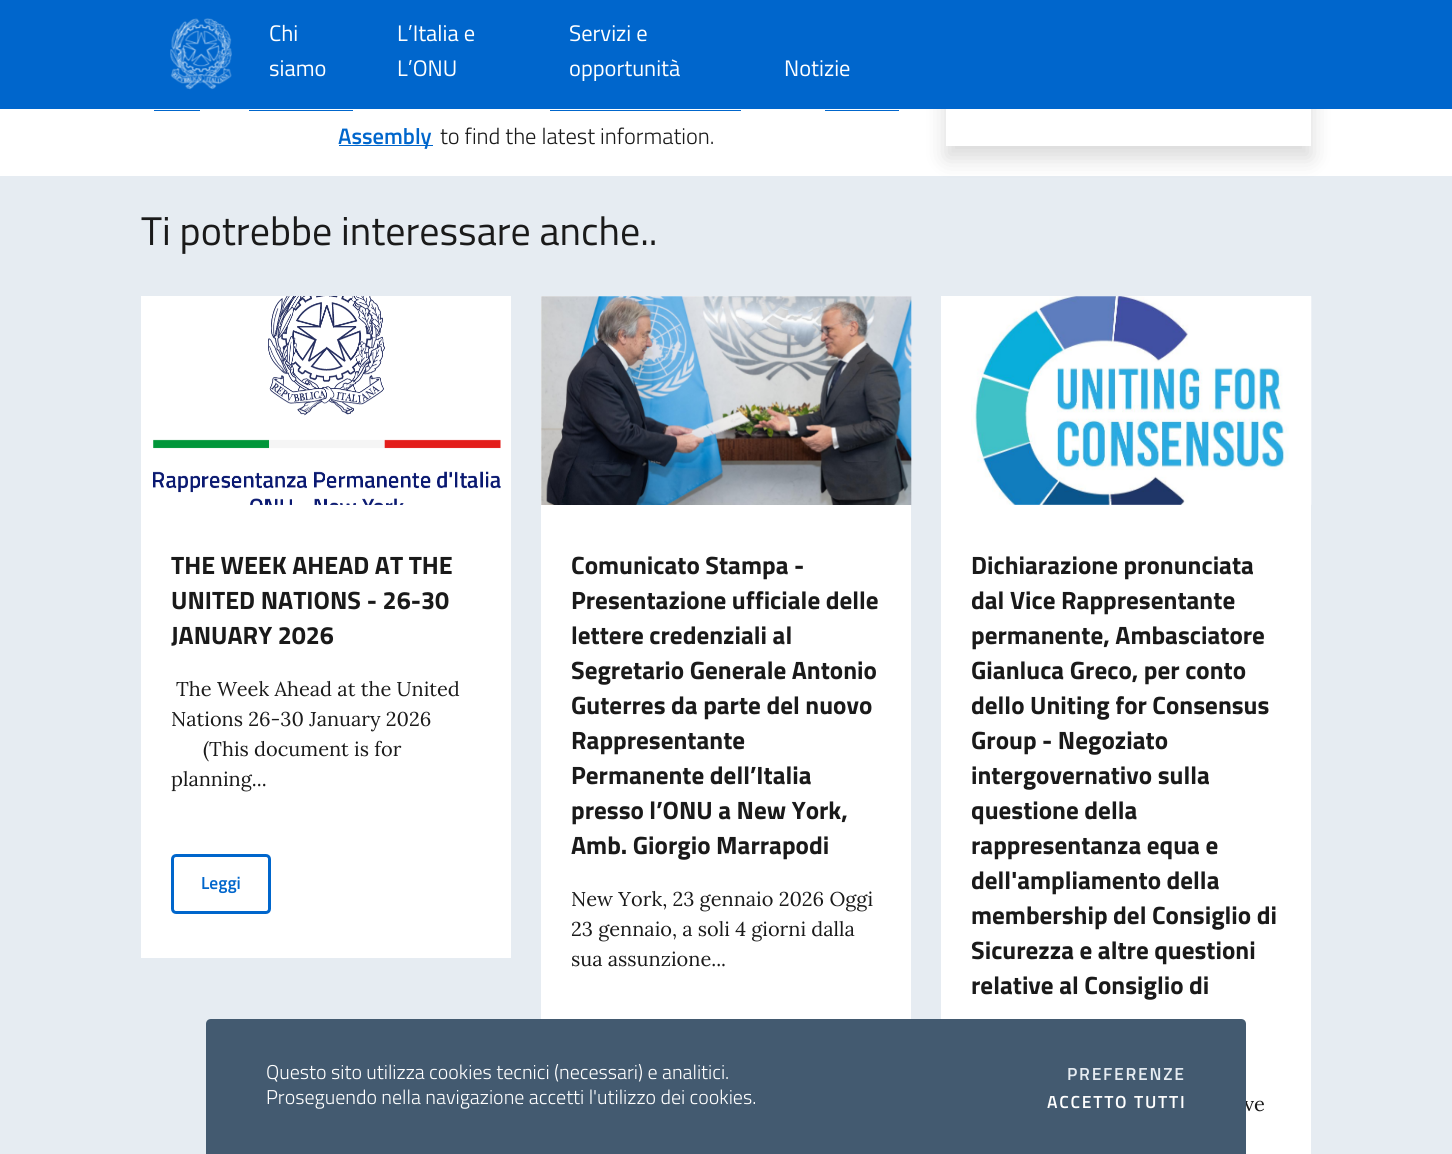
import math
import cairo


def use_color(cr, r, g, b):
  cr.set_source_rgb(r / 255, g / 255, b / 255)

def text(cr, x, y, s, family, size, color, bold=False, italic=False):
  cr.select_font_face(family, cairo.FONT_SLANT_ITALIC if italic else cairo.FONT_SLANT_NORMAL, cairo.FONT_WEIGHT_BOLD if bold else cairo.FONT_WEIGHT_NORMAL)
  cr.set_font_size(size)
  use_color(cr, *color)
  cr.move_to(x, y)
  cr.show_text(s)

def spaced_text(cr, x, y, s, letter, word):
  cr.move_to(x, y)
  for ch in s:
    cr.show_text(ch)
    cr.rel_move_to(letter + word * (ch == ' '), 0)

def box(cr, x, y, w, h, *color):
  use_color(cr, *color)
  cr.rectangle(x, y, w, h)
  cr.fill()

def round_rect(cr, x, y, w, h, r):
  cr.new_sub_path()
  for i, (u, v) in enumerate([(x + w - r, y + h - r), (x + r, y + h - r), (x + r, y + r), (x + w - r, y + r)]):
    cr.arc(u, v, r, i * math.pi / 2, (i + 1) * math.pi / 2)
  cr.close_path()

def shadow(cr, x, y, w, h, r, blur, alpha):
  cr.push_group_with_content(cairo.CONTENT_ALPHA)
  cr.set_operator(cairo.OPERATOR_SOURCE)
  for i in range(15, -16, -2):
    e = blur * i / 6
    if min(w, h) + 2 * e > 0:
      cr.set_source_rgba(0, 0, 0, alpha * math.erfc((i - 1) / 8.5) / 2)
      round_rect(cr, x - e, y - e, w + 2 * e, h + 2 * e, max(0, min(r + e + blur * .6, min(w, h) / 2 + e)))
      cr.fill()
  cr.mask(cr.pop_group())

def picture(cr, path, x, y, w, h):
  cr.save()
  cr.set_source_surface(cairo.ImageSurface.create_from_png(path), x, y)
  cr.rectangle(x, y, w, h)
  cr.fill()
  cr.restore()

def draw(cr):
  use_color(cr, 255, 255, 255)
  cr.paint()
  box(cr, 0, 176, 1452, 978, 230, 236, 242)
  cr.save()
  cr.set_fill_rule(cairo.FILL_RULE_EVEN_ODD)
  cr.new_path()
  cr.move_to(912, 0)
  cr.line_to(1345, 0)
  cr.line_to(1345, 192)
  cr.line_to(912, 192)
  cr.close_path()
  cr.move_to(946, -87)
  cr.line_to(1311, -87)
  cr.line_to(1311, 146)
  cr.line_to(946, 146)
  cr.close_path()
  cr.clip()
  use_color(cr, 0, 0, 0)
  shadow(cr, 946, -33, 365, 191, 0, 11, 0.15)
  cr.restore()
  box(cr, 0, 0, 1452, 109, 0, 102, 204)
  picture(cr, "img_01.png", 170, 18, 62, 72)
  box(cr, 154, 110, 46, 1, 0, 102, 204)
  box(cr, 249, 110, 104, 1, 0, 102, 204)
  box(cr, 550, 110, 191, 1, 0, 102, 204)
  box(cr, 825, 110, 74, 1, 0, 102, 204)
  box(cr, 339, 145, 94, 1, 0, 102, 204)
  box(cr, 141, 296, 370, 662, 255, 255, 255)
  picture(cr, "img_02.png", 153, 296, 348, 209)
  round_rect(cr, 172.5, 855.5, 97, 57, 3.5)
  use_color(cr, 0, 102, 204)
  cr.set_line_width(3)
  cr.stroke()
  box(cr, 541, 296, 370, 723, 255, 255, 255)
  picture(cr, "img_03.png", 541, 296, 371, 209)
  box(cr, 941, 296, 370, 858, 255, 255, 255)
  picture(cr, "img_04.png", 971, 296, 341, 209)
  text(cr, 269, 41, "Chi", "Titillium Web", 22.5, (255, 255, 255))
  text(cr, 269, 76, "siamo", "Titillium Web", 22.5, (255, 255, 255))
  text(cr, 397, 41, "L’Italia e", "Titillium Web", 22.5, (255, 255, 255))
  text(cr, 397, 76, "L’ONU", "Titillium Web", 22.5, (255, 255, 255))
  text(cr, 569, 41, "Servizi e", "Titillium Web", 22.5, (255, 255, 255))
  text(cr, 569, 76, "opportunità", "Titillium Web", 22.5, (255, 255, 255))
  text(cr, 784, 76, "Notizie", "Titillium Web", 22.5, (255, 255, 255))
  text(cr, 338, 144, "Assembly", "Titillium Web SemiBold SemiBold", 22.5, (0, 102, 204))
  text(cr, 440, 144, "to find the latest information.", "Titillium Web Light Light", 22.5, (26, 26, 26))
  text(cr, 141, 245, "Ti potrebbe interessare anche..", "Titillium Web", 40, (26, 26, 26))
  text(cr, 171, 574, "THE WEEK AHEAD AT THE", "Titillium Web", 25.1, (26, 26, 26), bold=True)
  text(cr, 171, 609, "UNITED NATIONS - 26-30", "Titillium Web", 25.1, (26, 26, 26), bold=True)
  text(cr, 171, 644, "JANUARY 2026", "Titillium Web", 25.1, (26, 26, 26), bold=True)
  text(cr, 176, 696, "The Week Ahead at the United", "Lora", 20, (26, 26, 26))
  text(cr, 171, 726, "Nations 26-30 January 2026", "Lora", 20, (26, 26, 26))
  text(cr, 203, 756, "(This document is for", "Lora", 20, (26, 26, 26))
  text(cr, 171, 786, "planning...", "Lora", 20, (26, 26, 26))
  text(cr, 201, 889, "Leggi", "Titillium Web SemiBold SemiBold", 17.5, (0, 102, 204))
  text(cr, 571, 574, "Comunicato Stampa -", "Titillium Web", 25.1, (26, 26, 26), bold=True)
  text(cr, 571, 609, "Presentazione ufficiale delle", "Titillium Web", 25.1, (26, 26, 26), bold=True)
  text(cr, 571, 644, "lettere credenziali al", "Titillium Web", 25.1, (26, 26, 26), bold=True)
  text(cr, 571, 679, "Segretario Generale Antonio", "Titillium Web", 25.1, (26, 26, 26), bold=True)
  text(cr, 571, 714, "Guterres da parte del nuovo", "Titillium Web", 25.1, (26, 26, 26), bold=True)
  text(cr, 571, 749, "Rappresentante", "Titillium Web", 25.1, (26, 26, 26), bold=True)
  text(cr, 571, 784, "Permanente dell’Italia", "Titillium Web", 25.1, (26, 26, 26), bold=True)
  text(cr, 571, 819, "presso l’ONU a New York,", "Titillium Web", 25.1, (26, 26, 26), bold=True)
  text(cr, 571, 854, "Amb. Giorgio Marrapodi", "Titillium Web", 25.1, (26, 26, 26), bold=True)
  text(cr, 571, 906, "New York, 23 gennaio 2026 Oggi", "Lora", 20, (26, 26, 26))
  text(cr, 571, 936, "23 gennaio, a soli 4 giorni dalla", "Lora", 20, (26, 26, 26))
  text(cr, 571, 966, "sua assunzione...", "Lora", 20, (26, 26, 26))
  text(cr, 971, 574, "Dichiarazione pronunciata", "Titillium Web", 25.1, (26, 26, 26), bold=True)
  text(cr, 971, 609, "dal Vice Rappresentante", "Titillium Web", 25.1, (26, 26, 26), bold=True)
  text(cr, 971, 644, "permanente, Ambasciatore", "Titillium Web", 25.1, (26, 26, 26), bold=True)
  text(cr, 971, 679, "Gianluca Greco, per conto", "Titillium Web", 25.1, (26, 26, 26), bold=True)
  text(cr, 971, 714, "dello Uniting for Consensus", "Titillium Web", 25.1, (26, 26, 26), bold=True)
  text(cr, 971, 749, "Group - Negoziato", "Titillium Web", 25.1, (26, 26, 26), bold=True)
  text(cr, 971, 784, "intergovernativo sulla", "Titillium Web", 25.1, (26, 26, 26), bold=True)
  text(cr, 971, 819, "questione della", "Titillium Web", 25.1, (26, 26, 26), bold=True)
  text(cr, 971, 854, "rappresentanza equa e", "Titillium Web", 25.1, (26, 26, 26), bold=True)
  text(cr, 971, 889, "dell'ampliamento della", "Titillium Web", 25.1, (26, 26, 26), bold=True)
  text(cr, 971, 924, "membership del Consiglio di", "Titillium Web", 25.1, (26, 26, 26), bold=True)
  text(cr, 971, 959, "Sicurezza e altre questioni", "Titillium Web", 25.1, (26, 26, 26), bold=True)
  text(cr, 971, 994, "relative al Consiglio di", "Titillium Web", 25.1, (26, 26, 26), bold=True)
  text(cr, 1244, 1111, "ve", "Lora", 20, (26, 26, 26))
  use_color(cr, 67, 90, 112)
  cr.new_path()
  cr.move_to(211, 1019)
  cr.line_to(1241, 1019)
  cr.curve_to(1244, 1019, 1246, 1021, 1246, 1024)
  cr.line_to(1246, 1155)
  cr.line_to(206, 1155)
  cr.line_to(206, 1024)
  cr.curve_to(206, 1021, 208, 1019, 211, 1019)
  cr.close_path()
  cr.fill()
  text(cr, 266, 1079, "Questo sito utilizza cookies tecnici (necessari) e analitici.", "Titillium Web Light Light", 20, (255, 255, 255))
  text(cr, 266, 1104, "Proseguendo nella navigazione accetti l'utilizzo dei cookies.", "Titillium Web Light Light", 20, (255, 255, 255))
  cr.select_font_face("Titillium Web SemiBold SemiBold")
  cr.set_font_size(17.5)
  use_color(cr, 230, 236, 242)
  spaced_text(cr, 1067, 1080, "PREFERENZE", 1.75, 0)
  use_color(cr, 255, 255, 255)
  spaced_text(cr, 1047, 1108, "ACCETTO TUTTI", 1.75, 0)


surface = cairo.ImageSurface(cairo.FORMAT_RGB24, 1452, 1154)
cr = cairo.Context(surface)
options = cairo.FontOptions()
options.set_hint_metrics(cairo.HINT_METRICS_OFF)
options.set_hint_style(cairo.HINT_STYLE_NONE)
cr.set_font_options(options)
cr.set_miter_limit(4)
draw(cr)
surface.write_to_png("out.png")
